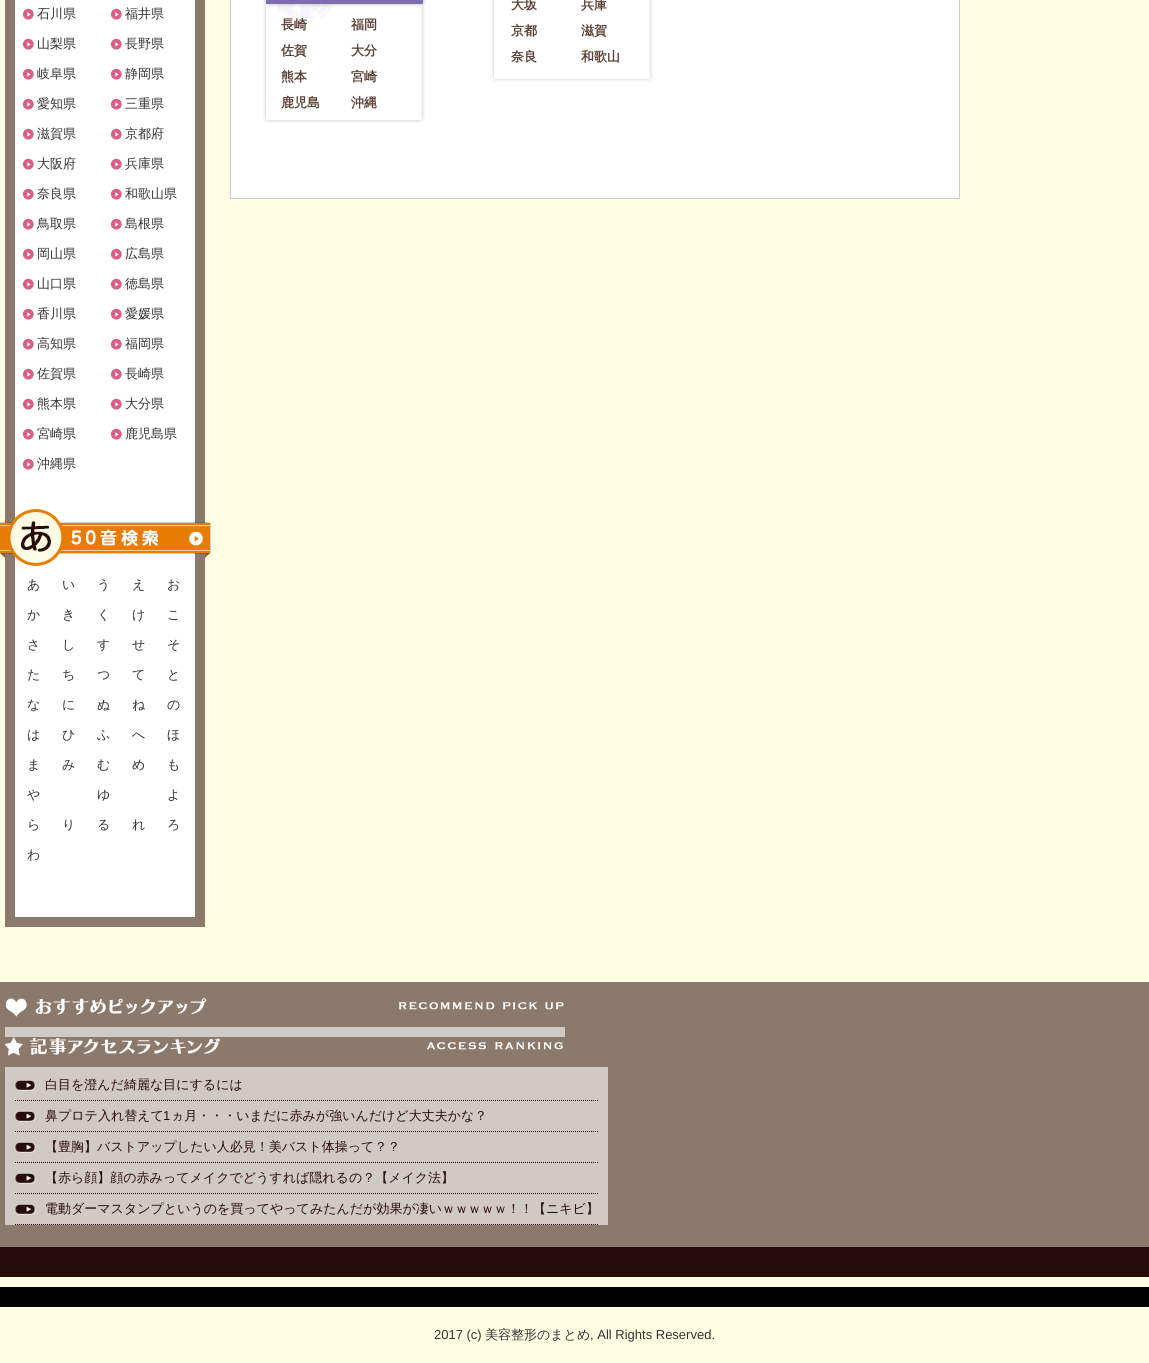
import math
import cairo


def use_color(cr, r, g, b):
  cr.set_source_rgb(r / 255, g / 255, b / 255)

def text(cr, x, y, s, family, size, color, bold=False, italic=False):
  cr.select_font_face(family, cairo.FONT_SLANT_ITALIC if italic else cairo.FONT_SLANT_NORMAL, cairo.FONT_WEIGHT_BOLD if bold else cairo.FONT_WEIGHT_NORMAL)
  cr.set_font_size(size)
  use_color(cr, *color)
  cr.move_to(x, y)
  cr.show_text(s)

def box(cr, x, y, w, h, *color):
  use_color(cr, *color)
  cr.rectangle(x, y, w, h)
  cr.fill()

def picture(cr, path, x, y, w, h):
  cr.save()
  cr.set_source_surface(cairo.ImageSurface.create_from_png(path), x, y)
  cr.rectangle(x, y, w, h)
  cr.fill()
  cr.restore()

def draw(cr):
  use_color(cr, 255, 253, 226)
  cr.paint()
  use_color(cr, 255, 255, 255)
  cr.rectangle(10, -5, 190, 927)
  cr.fill_preserve()
  use_color(cr, 139, 121, 107)
  cr.set_line_width(10)
  cr.stroke()
  picture(cr, "img_01.png", 22, 8, 12, 12)
  picture(cr, "img_01.png", 110, 8, 12, 12)
  picture(cr, "img_01.png", 22, 38, 12, 12)
  picture(cr, "img_01.png", 110, 38, 12, 12)
  picture(cr, "img_01.png", 22, 68, 12, 12)
  picture(cr, "img_01.png", 110, 68, 12, 12)
  picture(cr, "img_01.png", 22, 98, 12, 12)
  picture(cr, "img_01.png", 110, 98, 12, 12)
  picture(cr, "img_01.png", 22, 128, 12, 12)
  picture(cr, "img_01.png", 110, 128, 12, 12)
  picture(cr, "img_01.png", 22, 158, 12, 12)
  picture(cr, "img_01.png", 110, 158, 12, 12)
  picture(cr, "img_01.png", 22, 188, 12, 12)
  picture(cr, "img_01.png", 110, 188, 12, 12)
  picture(cr, "img_01.png", 22, 218, 12, 12)
  picture(cr, "img_01.png", 110, 218, 12, 12)
  picture(cr, "img_01.png", 22, 248, 12, 12)
  picture(cr, "img_01.png", 110, 248, 12, 12)
  picture(cr, "img_01.png", 22, 278, 12, 12)
  picture(cr, "img_01.png", 110, 278, 12, 12)
  picture(cr, "img_01.png", 22, 308, 12, 12)
  picture(cr, "img_01.png", 110, 308, 12, 12)
  picture(cr, "img_01.png", 22, 338, 12, 12)
  picture(cr, "img_01.png", 110, 338, 12, 12)
  picture(cr, "img_01.png", 22, 368, 12, 12)
  picture(cr, "img_01.png", 110, 368, 12, 12)
  picture(cr, "img_01.png", 22, 398, 12, 12)
  picture(cr, "img_01.png", 110, 398, 12, 12)
  picture(cr, "img_01.png", 22, 428, 12, 12)
  picture(cr, "img_01.png", 110, 428, 12, 12)
  picture(cr, "img_01.png", 22, 458, 12, 12)
  picture(cr, "img_02.png", 0, 509, 211, 57)
  box(cr, 231, 0, 728, 198, 255, 255, 255)
  picture(cr, "img_03.png", 263, 0, 390, 123)
  cr.rectangle(230.5, -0.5, 729, 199)
  use_color(cr, 204, 204, 204)
  cr.set_line_width(1)
  cr.stroke()
  box(cr, 0, 982, 1149, 265, 139, 121, 107)
  picture(cr, "img_04.png", 5, 998, 559, 19)
  box(cr, 5, 1027, 560, 10, 209, 201, 196)
  picture(cr, "img_05.png", 5, 1037, 558, 19)
  box(cr, 5, 1067, 603, 158, 209, 201, 196)
  picture(cr, "img_06.png", 15, 1080, 21, 11)
  cr.new_path()
  cr.move_to(15, 1100.5)
  cr.line_to(598, 1100.5)
  use_color(cr, 39, 11, 11)
  cr.set_dash([1, 1])
  cr.stroke()
  picture(cr, "img_06.png", 15, 1111, 21, 11)
  cr.new_path()
  cr.move_to(15, 1131.5)
  cr.line_to(598, 1131.5)
  cr.stroke()
  picture(cr, "img_06.png", 15, 1142, 21, 11)
  cr.new_path()
  cr.move_to(15, 1162.5)
  cr.line_to(598, 1162.5)
  cr.stroke()
  picture(cr, "img_06.png", 15, 1173, 21, 11)
  cr.new_path()
  cr.move_to(15, 1193.5)
  cr.line_to(598, 1193.5)
  cr.stroke()
  picture(cr, "img_06.png", 15, 1204, 21, 11)
  cr.new_path()
  cr.move_to(15, 1224.5)
  cr.line_to(598, 1224.5)
  cr.stroke()
  box(cr, 0, 1247, 1149, 30, 39, 11, 11)
  box(cr, 0, 1287, 1149, 20, 0, 0, 0)
  text(cr, 37, 18, "石川県", "WenQuanYi Zen Hei Medium", 13, (51, 51, 51))
  text(cr, 125, 18, "福井県", "WenQuanYi Zen Hei Medium", 13, (51, 51, 51))
  text(cr, 37, 48, "山梨県", "WenQuanYi Zen Hei Medium", 13, (51, 51, 51))
  text(cr, 125, 48, "長野県", "WenQuanYi Zen Hei Medium", 13, (51, 51, 51))
  text(cr, 37, 78, "岐阜県", "WenQuanYi Zen Hei Medium", 13, (51, 51, 51))
  text(cr, 125, 78, "静岡県", "WenQuanYi Zen Hei Medium", 13, (51, 51, 51))
  text(cr, 37, 108, "愛知県", "WenQuanYi Zen Hei Medium", 13, (51, 51, 51))
  text(cr, 125, 108, "三重県", "WenQuanYi Zen Hei Medium", 13, (51, 51, 51))
  text(cr, 37, 138, "滋賀県", "WenQuanYi Zen Hei Medium", 13, (51, 51, 51))
  text(cr, 125, 138, "京都府", "WenQuanYi Zen Hei Medium", 13, (51, 51, 51))
  text(cr, 37, 168, "大阪府", "WenQuanYi Zen Hei Medium", 13, (51, 51, 51))
  text(cr, 125, 168, "兵庫県", "WenQuanYi Zen Hei Medium", 13, (51, 51, 51))
  text(cr, 37, 198, "奈良県", "WenQuanYi Zen Hei Medium", 13, (51, 51, 51))
  text(cr, 125, 198, "和歌山県", "WenQuanYi Zen Hei Medium", 13, (51, 51, 51))
  text(cr, 37, 228, "鳥取県", "WenQuanYi Zen Hei Medium", 13, (51, 51, 51))
  text(cr, 125, 228, "島根県", "WenQuanYi Zen Hei Medium", 13, (51, 51, 51))
  text(cr, 37, 258, "岡山県", "WenQuanYi Zen Hei Medium", 13, (51, 51, 51))
  text(cr, 125, 258, "広島県", "WenQuanYi Zen Hei Medium", 13, (51, 51, 51))
  text(cr, 37, 288, "山口県", "WenQuanYi Zen Hei Medium", 13, (51, 51, 51))
  text(cr, 125, 288, "徳島県", "WenQuanYi Zen Hei Medium", 13, (51, 51, 51))
  text(cr, 37, 318, "香川県", "WenQuanYi Zen Hei Medium", 13, (51, 51, 51))
  text(cr, 125, 318, "愛媛県", "WenQuanYi Zen Hei Medium", 13, (51, 51, 51))
  text(cr, 37, 348, "高知県", "WenQuanYi Zen Hei Medium", 13, (51, 51, 51))
  text(cr, 125, 348, "福岡県", "WenQuanYi Zen Hei Medium", 13, (51, 51, 51))
  text(cr, 37, 378, "佐賀県", "WenQuanYi Zen Hei Medium", 13, (51, 51, 51))
  text(cr, 125, 378, "長崎県", "WenQuanYi Zen Hei Medium", 13, (51, 51, 51))
  text(cr, 37, 408, "熊本県", "WenQuanYi Zen Hei Medium", 13, (51, 51, 51))
  text(cr, 125, 408, "大分県", "WenQuanYi Zen Hei Medium", 13, (51, 51, 51))
  text(cr, 37, 438, "宮崎県", "WenQuanYi Zen Hei Medium", 13, (51, 51, 51))
  text(cr, 125, 438, "鹿児島県", "WenQuanYi Zen Hei Medium", 13, (51, 51, 51))
  text(cr, 37, 468, "沖縄県", "WenQuanYi Zen Hei Medium", 13, (51, 51, 51))
  text(cr, 27, 589, "あ", "WenQuanYi Zen Hei Medium", 13, (51, 51, 51))
  text(cr, 62, 589, "い", "WenQuanYi Zen Hei Medium", 13, (51, 51, 51))
  text(cr, 97, 589, "う", "WenQuanYi Zen Hei Medium", 13, (51, 51, 51))
  text(cr, 132, 589, "え", "WenQuanYi Zen Hei Medium", 13, (51, 51, 51))
  text(cr, 167, 589, "お", "WenQuanYi Zen Hei Medium", 13, (51, 51, 51))
  text(cr, 27, 619, "か", "WenQuanYi Zen Hei Medium", 13, (51, 51, 51))
  text(cr, 62, 619, "き", "WenQuanYi Zen Hei Medium", 13, (51, 51, 51))
  text(cr, 97, 619, "く", "WenQuanYi Zen Hei Medium", 13, (51, 51, 51))
  text(cr, 132, 619, "け", "WenQuanYi Zen Hei Medium", 13, (51, 51, 51))
  text(cr, 167, 619, "こ", "WenQuanYi Zen Hei Medium", 13, (51, 51, 51))
  text(cr, 27, 649, "さ", "WenQuanYi Zen Hei Medium", 13, (51, 51, 51))
  text(cr, 62, 649, "し", "WenQuanYi Zen Hei Medium", 13, (51, 51, 51))
  text(cr, 97, 649, "す", "WenQuanYi Zen Hei Medium", 13, (51, 51, 51))
  text(cr, 132, 649, "せ", "WenQuanYi Zen Hei Medium", 13, (51, 51, 51))
  text(cr, 167, 649, "そ", "WenQuanYi Zen Hei Medium", 13, (51, 51, 51))
  text(cr, 27, 679, "た", "WenQuanYi Zen Hei Medium", 13, (51, 51, 51))
  text(cr, 62, 679, "ち", "WenQuanYi Zen Hei Medium", 13, (51, 51, 51))
  text(cr, 97, 679, "つ", "WenQuanYi Zen Hei Medium", 13, (51, 51, 51))
  text(cr, 132, 679, "て", "WenQuanYi Zen Hei Medium", 13, (51, 51, 51))
  text(cr, 167, 679, "と", "WenQuanYi Zen Hei Medium", 13, (51, 51, 51))
  text(cr, 27, 709, "な", "WenQuanYi Zen Hei Medium", 13, (51, 51, 51))
  text(cr, 62, 709, "に", "WenQuanYi Zen Hei Medium", 13, (51, 51, 51))
  text(cr, 97, 709, "ぬ", "WenQuanYi Zen Hei Medium", 13, (51, 51, 51))
  text(cr, 132, 709, "ね", "WenQuanYi Zen Hei Medium", 13, (51, 51, 51))
  text(cr, 167, 709, "の", "WenQuanYi Zen Hei Medium", 13, (51, 51, 51))
  text(cr, 27, 739, "は", "WenQuanYi Zen Hei Medium", 13, (51, 51, 51))
  text(cr, 62, 739, "ひ", "WenQuanYi Zen Hei Medium", 13, (51, 51, 51))
  text(cr, 97, 739, "ふ", "WenQuanYi Zen Hei Medium", 13, (51, 51, 51))
  text(cr, 132, 739, "へ", "WenQuanYi Zen Hei Medium", 13, (51, 51, 51))
  text(cr, 167, 739, "ほ", "WenQuanYi Zen Hei Medium", 13, (51, 51, 51))
  text(cr, 27, 769, "ま", "WenQuanYi Zen Hei Medium", 13, (51, 51, 51))
  text(cr, 62, 769, "み", "WenQuanYi Zen Hei Medium", 13, (51, 51, 51))
  text(cr, 97, 769, "む", "WenQuanYi Zen Hei Medium", 13, (51, 51, 51))
  text(cr, 132, 769, "め", "WenQuanYi Zen Hei Medium", 13, (51, 51, 51))
  text(cr, 167, 769, "も", "WenQuanYi Zen Hei Medium", 13, (51, 51, 51))
  text(cr, 27, 799, "や", "WenQuanYi Zen Hei Medium", 13, (51, 51, 51))
  text(cr, 97, 799, "ゆ", "WenQuanYi Zen Hei Medium", 13, (51, 51, 51))
  text(cr, 167, 799, "よ", "WenQuanYi Zen Hei Medium", 13, (51, 51, 51))
  text(cr, 27, 829, "ら", "WenQuanYi Zen Hei Medium", 13, (51, 51, 51))
  text(cr, 62, 829, "り", "WenQuanYi Zen Hei Medium", 13, (51, 51, 51))
  text(cr, 97, 829, "る", "WenQuanYi Zen Hei Medium", 13, (51, 51, 51))
  text(cr, 132, 829, "れ", "WenQuanYi Zen Hei Medium", 13, (51, 51, 51))
  text(cr, 167, 829, "ろ", "WenQuanYi Zen Hei Medium", 13, (51, 51, 51))
  text(cr, 27, 859, "わ", "WenQuanYi Zen Hei Medium", 13, (51, 51, 51))
  text(cr, 281, 29, "長崎", "WenQuanYi Zen Hei", 13, (91, 64, 53), bold=True)
  text(cr, 351, 29, "福岡", "WenQuanYi Zen Hei", 13, (91, 64, 53), bold=True)
  text(cr, 281, 55, "佐賀", "WenQuanYi Zen Hei", 13, (91, 64, 53), bold=True)
  text(cr, 351, 55, "大分", "WenQuanYi Zen Hei", 13, (91, 64, 53), bold=True)
  text(cr, 281, 81, "熊本", "WenQuanYi Zen Hei", 13, (91, 64, 53), bold=True)
  text(cr, 351, 81, "宮崎", "WenQuanYi Zen Hei", 13, (91, 64, 53), bold=True)
  text(cr, 281, 107, "鹿児島", "WenQuanYi Zen Hei", 13, (91, 64, 53), bold=True)
  text(cr, 351, 107, "沖縄", "WenQuanYi Zen Hei", 13, (91, 64, 53), bold=True)
  text(cr, 511, 9, "大坂", "WenQuanYi Zen Hei", 13, (91, 64, 53), bold=True)
  text(cr, 581, 9, "兵庫", "WenQuanYi Zen Hei", 13, (91, 64, 53), bold=True)
  text(cr, 511, 35, "京都", "WenQuanYi Zen Hei", 13, (91, 64, 53), bold=True)
  text(cr, 581, 35, "滋賀", "WenQuanYi Zen Hei", 13, (91, 64, 53), bold=True)
  text(cr, 511, 61, "奈良", "WenQuanYi Zen Hei", 13, (91, 64, 53), bold=True)
  text(cr, 581, 61, "和歌山", "WenQuanYi Zen Hei", 13, (91, 64, 53), bold=True)
  text(cr, 45, 1089, "白目を澄んだ綺麗な目にするには", "WenQuanYi Zen Hei Medium", 13, (39, 11, 11))
  text(cr, 45, 1120, "鼻プロテ入れ替えて", "WenQuanYi Zen Hei Medium", 13, (39, 11, 11))
  text(cr, 163, 1120, "1", "Liberation Sans", 13, (39, 11, 11))
  text(cr, 171, 1120, "ヵ月・・・いまだに赤みが強いんだけど大丈夫かな？", "WenQuanYi Zen Hei Medium", 13, (39, 11, 11))
  text(cr, 45, 1151, "【豊胸】バストアップしたい人必見！美バスト体操って？？", "WenQuanYi Zen Hei Medium", 13, (39, 11, 11))
  text(cr, 45, 1182, "【赤ら顔】顔の赤みってメイクでどうすれば隠れるの？【メイク法】", "WenQuanYi Zen Hei Medium", 13, (39, 11, 11))
  text(cr, 45, 1213, "電動ダーマスタンプというのを買ってやってみたんだが効果が凄いｗｗｗｗｗ！！【ニキビ】", "WenQuanYi Zen Hei Medium", 13, (39, 11, 11))
  text(cr, 434, 1339, "2017 (c)", "Liberation Sans", 13, (51, 51, 51))
  text(cr, 485, 1339, "美容整形のまとめ", "WenQuanYi Zen Hei Medium", 13, (51, 51, 51))
  text(cr, 590, 1339, ", All Rights Reserved.", "Liberation Sans", 13, (51, 51, 51))


surface = cairo.ImageSurface(cairo.FORMAT_RGB24, 1149, 1363)
cr = cairo.Context(surface)
options = cairo.FontOptions()
options.set_hint_metrics(cairo.HINT_METRICS_OFF)
options.set_hint_style(cairo.HINT_STYLE_NONE)
cr.set_font_options(options)
cr.set_miter_limit(4)
draw(cr)
surface.write_to_png("out.png")
